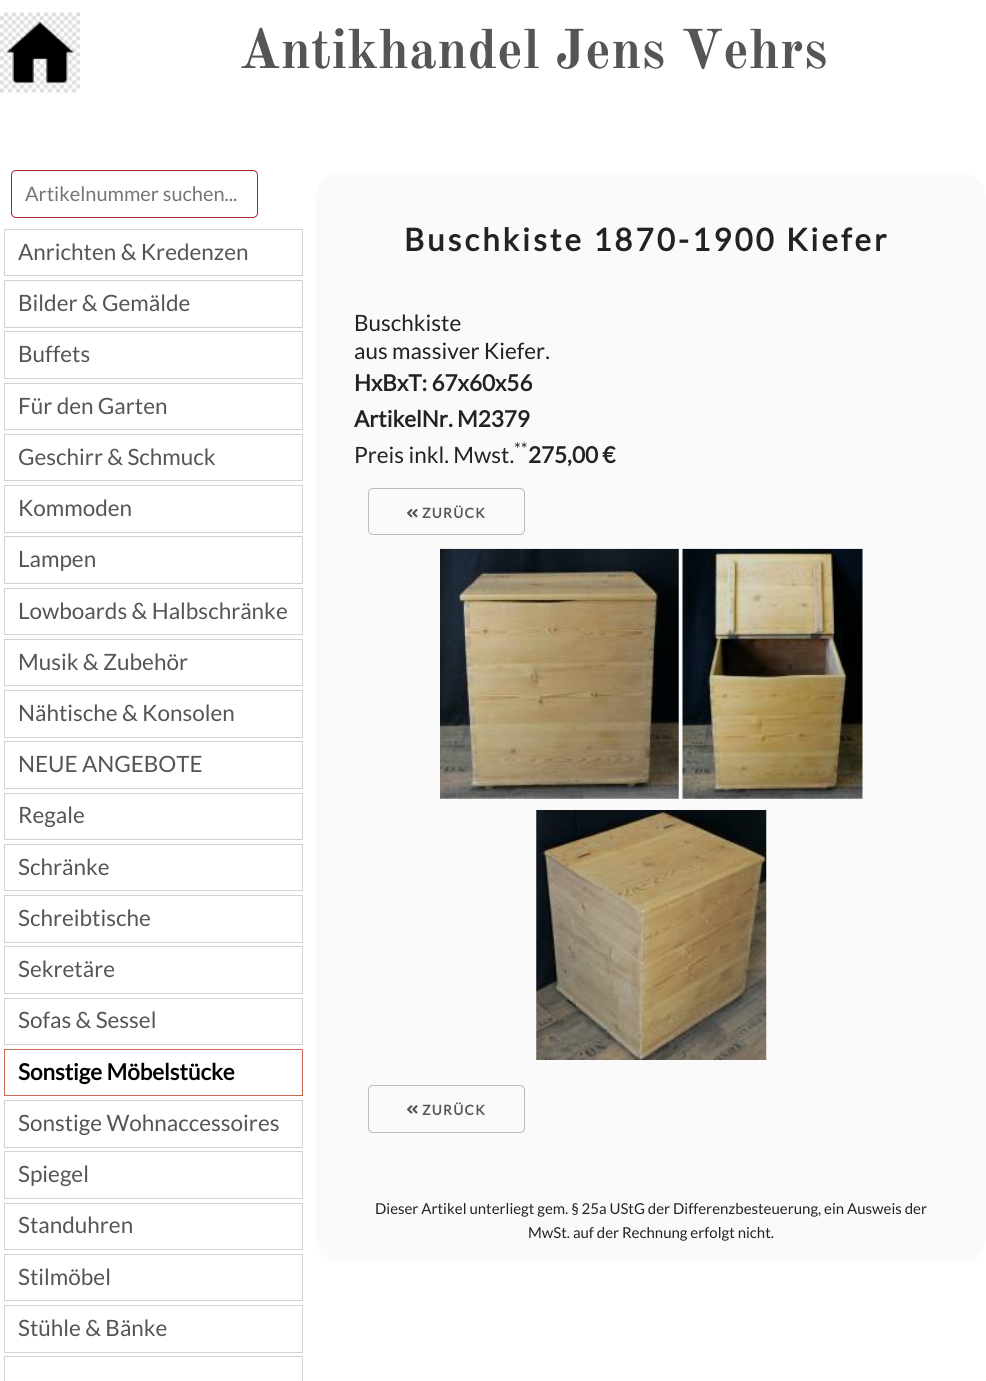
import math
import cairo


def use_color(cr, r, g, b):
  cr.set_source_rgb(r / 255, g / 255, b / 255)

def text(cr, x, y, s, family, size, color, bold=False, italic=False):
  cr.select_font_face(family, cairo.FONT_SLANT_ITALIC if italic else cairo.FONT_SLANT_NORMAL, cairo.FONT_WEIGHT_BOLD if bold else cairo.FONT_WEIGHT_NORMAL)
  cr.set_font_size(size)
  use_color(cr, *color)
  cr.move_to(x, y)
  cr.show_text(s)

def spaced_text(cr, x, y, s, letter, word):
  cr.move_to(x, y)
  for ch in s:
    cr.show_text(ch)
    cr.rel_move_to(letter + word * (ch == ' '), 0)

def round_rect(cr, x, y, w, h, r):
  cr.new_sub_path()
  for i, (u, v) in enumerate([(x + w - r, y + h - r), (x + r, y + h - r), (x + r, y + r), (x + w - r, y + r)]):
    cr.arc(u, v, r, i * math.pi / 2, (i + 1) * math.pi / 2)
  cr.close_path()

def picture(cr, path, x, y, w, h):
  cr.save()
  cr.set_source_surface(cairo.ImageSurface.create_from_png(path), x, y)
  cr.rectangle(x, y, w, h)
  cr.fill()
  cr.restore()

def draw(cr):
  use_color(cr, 255, 255, 255)
  cr.paint()
  picture(cr, "img_01.png", 0, 12, 80, 81)
  round_rect(cr, 11.5, 170.5, 246, 47, 4.5)
  use_color(cr, 165, 42, 42)
  cr.set_line_width(1)
  cr.stroke()
  cr.rectangle(4.5, 229.5, 298, 46)
  use_color(cr, 211, 211, 211)
  cr.stroke()
  cr.rectangle(4.5, 280.5, 298, 47)
  cr.stroke()
  cr.rectangle(4.5, 331.5, 298, 47)
  cr.stroke()
  cr.rectangle(4.5, 383.5, 298, 46)
  cr.stroke()
  cr.rectangle(4.5, 434.5, 298, 46)
  cr.stroke()
  cr.rectangle(4.5, 485.5, 298, 47)
  cr.stroke()
  cr.rectangle(4.5, 536.5, 298, 47)
  cr.stroke()
  cr.rectangle(4.5, 588.5, 298, 46)
  cr.stroke()
  cr.rectangle(4.5, 639.5, 298, 46)
  cr.stroke()
  cr.rectangle(4.5, 690.5, 298, 47)
  cr.stroke()
  cr.rectangle(4.5, 741.5, 298, 47)
  cr.stroke()
  cr.rectangle(4.5, 793.5, 298, 46)
  cr.stroke()
  cr.rectangle(4.5, 844.5, 298, 46)
  cr.stroke()
  cr.rectangle(4.5, 895.5, 298, 47)
  cr.stroke()
  cr.rectangle(4.5, 946.5, 298, 47)
  cr.stroke()
  cr.rectangle(4.5, 998.5, 298, 46)
  cr.stroke()
  cr.rectangle(4.5, 1049.5, 298, 46)
  use_color(cr, 203, 101, 84)
  cr.stroke()
  cr.rectangle(4.5, 1100.5, 298, 47)
  use_color(cr, 211, 211, 211)
  cr.stroke()
  cr.rectangle(4.5, 1151.5, 298, 47)
  cr.stroke()
  cr.rectangle(4.5, 1203.5, 298, 46)
  cr.stroke()
  cr.rectangle(4.5, 1254.5, 298, 46)
  cr.stroke()
  cr.rectangle(4.5, 1305.5, 298, 47)
  cr.stroke()
  cr.rectangle(4.5, 1356.5, 298, 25)
  cr.stroke()
  use_color(cr, 250, 250, 250)
  round_rect(cr, 316, 173, 670, 1090, 25)
  cr.fill()
  round_rect(cr, 368.5, 488.5, 156, 46, 4.5)
  use_color(cr, 187, 187, 187)
  cr.stroke()
  picture(cr, "img_02.png", 407, 508, 11, 10)
  picture(cr, "img_03.png", 440, 548, 239, 251)
  picture(cr, "img_04.png", 682, 548, 181, 251)
  picture(cr, "img_05.png", 536, 810, 231, 250)
  round_rect(cr, 368.5, 1085.5, 156, 47, 4.5)
  cr.stroke()
  picture(cr, "img_06.png", 407, 1105, 11, 9)
  text(cr, 239, 68, "Antikhandel Jens Vehrs", "Old Standard TT", 55, (85, 85, 85), bold=True)
  text(cr, 25, 201, "Artikelnummer suchen...", "Lato", 20, (117, 117, 117))
  text(cr, 18, 260, "Anrichten & Kredenzen", "Lato", 22.5, (85, 85, 85))
  text(cr, 18, 311, "Bilder & Gemälde", "Lato", 22.5, (85, 85, 85))
  text(cr, 18, 362, "Buffets", "Lato", 22.5, (85, 85, 85))
  text(cr, 18, 414, "Für den Garten", "Lato", 22.5, (85, 85, 85))
  text(cr, 18, 465, "Geschirr & Schmuck", "Lato", 22.5, (85, 85, 85))
  text(cr, 18, 516, "Kommoden", "Lato", 22.5, (85, 85, 85))
  text(cr, 18, 567, "Lampen", "Lato", 22.5, (85, 85, 85))
  text(cr, 18, 619, "Lowboards & Halbschränke", "Lato", 22.5, (85, 85, 85))
  text(cr, 18, 670, "Musik & Zubehör", "Lato", 22.5, (85, 85, 85))
  text(cr, 18, 721, "Nähtische & Konsolen", "Lato", 22.5, (85, 85, 85))
  text(cr, 18, 772, "NEUE ANGEBOTE", "Lato", 22.5, (85, 85, 85))
  text(cr, 18, 823, "Regale", "Lato", 22.5, (85, 85, 85))
  text(cr, 18, 875, "Schränke", "Lato", 22.5, (85, 85, 85))
  text(cr, 18, 926, "Schreibtische", "Lato", 22.5, (85, 85, 85))
  text(cr, 18, 977, "Sekretäre", "Lato", 22.5, (85, 85, 85))
  text(cr, 18, 1028, "Sofas & Sessel", "Lato", 22.5, (85, 85, 85))
  text(cr, 18, 1080, "Sonstige Möbelstücke", "Lato", 22.5, (0, 0, 0), bold=True)
  text(cr, 18, 1131, "Sonstige Wohnaccessoires", "Lato", 22.5, (85, 85, 85))
  text(cr, 18, 1182, "Spiegel", "Lato", 22.5, (85, 85, 85))
  text(cr, 18, 1233, "Standuhren", "Lato", 22.5, (85, 85, 85))
  text(cr, 18, 1285, "Stilmöbel", "Lato", 22.5, (85, 85, 85))
  text(cr, 18, 1336, "Stühle & Bänke", "Lato", 22.5, (85, 85, 85))
  cr.select_font_face("Lato", cairo.FONT_SLANT_NORMAL, cairo.FONT_WEIGHT_BOLD)
  cr.set_font_size(31.25)
  use_color(cr, 34, 34, 34)
  spaced_text(cr, 404, 251, "Buschkiste 1870-1900 Kiefer", 3.1, 0)
  text(cr, 354, 331, "Buschkiste", "Lato", 22.5, (34, 34, 34))
  text(cr, 354, 359, "aus massiver Kiefer.", "Lato", 22.5, (34, 34, 34))
  text(cr, 354, 391, "HxBxT: 67x60x56", "Lato", 22.5, (34, 34, 34), bold=True)
  text(cr, 354, 427, "ArtikelNr. M2379", "Lato", 22.5, (34, 34, 34), bold=True)
  text(cr, 514, 455, "**", "Lato", 17, (34, 34, 34))
  text(cr, 354, 463, "Preis inkl. Mwst.", "Lato", 22.5, (34, 34, 34))
  text(cr, 528, 463, "275,00 €", "Lato", 22.5, (34, 34, 34), bold=True)
  cr.set_font_size(13.75)
  use_color(cr, 85, 85, 85)
  spaced_text(cr, 422, 518, "ZURÜCK", 1.25, 0)
  spaced_text(cr, 422, 1115, "ZURÜCK", 1.25, 0)
  text(cr, 375, 1214, "Dieser Artikel unterliegt gem. § 25a UStG der Differenzbesteuerung, ein Ausweis der", "Lato", 15, (34, 34, 34))
  text(cr, 528, 1238, "MwSt. auf der Rechnung erfolgt nicht.", "Lato", 15, (34, 34, 34))


surface = cairo.ImageSurface(cairo.FORMAT_RGB24, 986, 1381)
cr = cairo.Context(surface)
options = cairo.FontOptions()
options.set_hint_metrics(cairo.HINT_METRICS_OFF)
options.set_hint_style(cairo.HINT_STYLE_NONE)
cr.set_font_options(options)
cr.set_miter_limit(4)
draw(cr)
surface.write_to_png("out.png")
